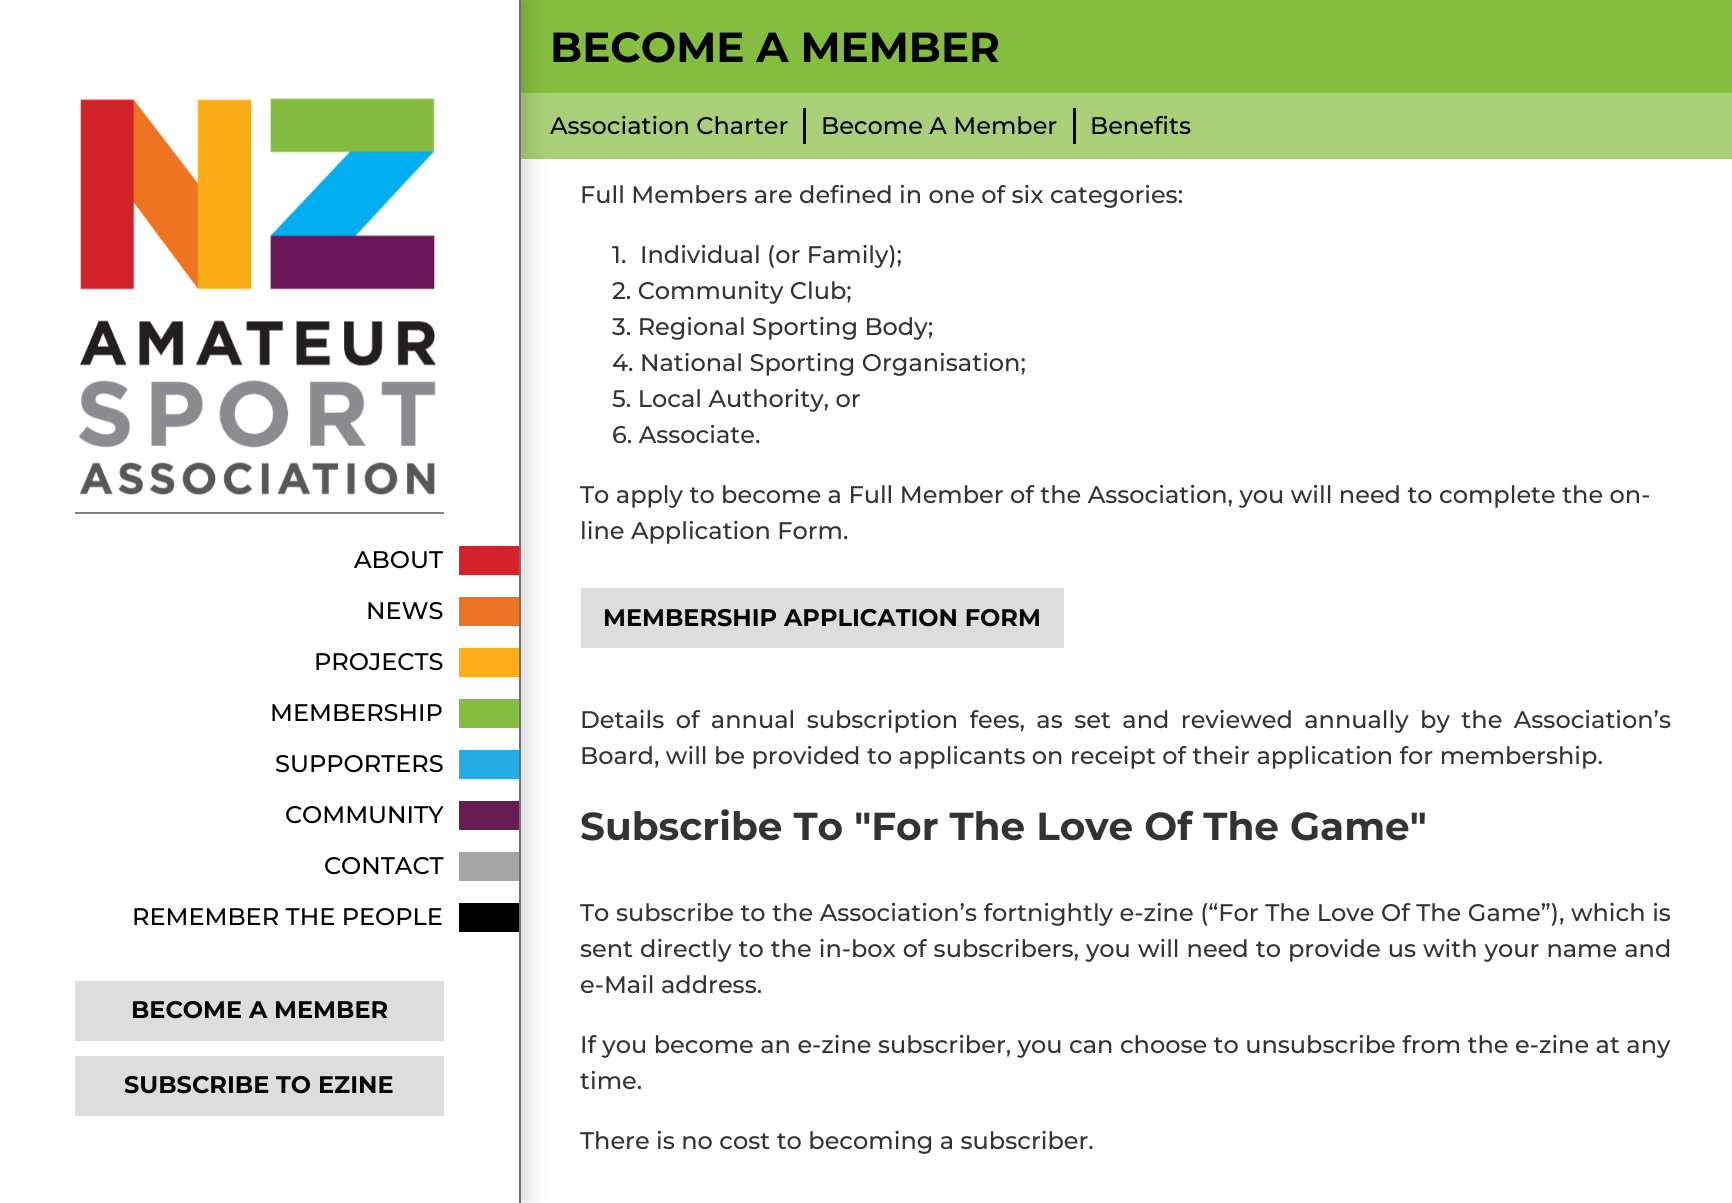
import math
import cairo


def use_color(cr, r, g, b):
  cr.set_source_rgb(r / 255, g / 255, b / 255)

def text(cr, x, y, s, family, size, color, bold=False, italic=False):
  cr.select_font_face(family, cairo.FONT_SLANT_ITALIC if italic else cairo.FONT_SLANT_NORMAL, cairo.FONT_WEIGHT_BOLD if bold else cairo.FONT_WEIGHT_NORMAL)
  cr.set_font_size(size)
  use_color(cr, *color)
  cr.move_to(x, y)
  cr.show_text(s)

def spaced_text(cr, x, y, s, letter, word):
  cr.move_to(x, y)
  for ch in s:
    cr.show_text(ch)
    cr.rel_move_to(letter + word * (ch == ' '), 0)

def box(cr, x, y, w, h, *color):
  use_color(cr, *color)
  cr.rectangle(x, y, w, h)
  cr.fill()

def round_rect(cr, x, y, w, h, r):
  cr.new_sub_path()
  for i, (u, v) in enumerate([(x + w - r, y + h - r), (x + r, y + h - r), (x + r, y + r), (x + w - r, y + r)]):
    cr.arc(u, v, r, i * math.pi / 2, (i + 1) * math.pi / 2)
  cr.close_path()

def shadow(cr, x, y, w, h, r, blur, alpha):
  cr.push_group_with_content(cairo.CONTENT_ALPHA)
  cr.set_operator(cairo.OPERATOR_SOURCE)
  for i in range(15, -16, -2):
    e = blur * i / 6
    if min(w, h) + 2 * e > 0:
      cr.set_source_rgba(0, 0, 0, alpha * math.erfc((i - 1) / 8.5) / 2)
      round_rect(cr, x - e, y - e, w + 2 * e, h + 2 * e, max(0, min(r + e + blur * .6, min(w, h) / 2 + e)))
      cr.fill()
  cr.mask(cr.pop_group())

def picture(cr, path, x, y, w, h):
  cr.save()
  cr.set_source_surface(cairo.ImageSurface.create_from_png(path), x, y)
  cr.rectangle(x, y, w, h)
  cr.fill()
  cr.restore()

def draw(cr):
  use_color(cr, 255, 255, 255)
  cr.paint()
  box(cr, 521, 0, 1211, 93, 133, 189, 64)
  cr.set_source_rgba(0.522, 0.741, 0.251, 0.7)
  cr.rectangle(521, 93, 1211, 66)
  cr.fill()
  use_color(cr, 0, 0, 0)
  shadow(cr, 8, 0, 520, 1203, 0, 11, 0.15)
  box(cr, 0, 0, 519, 1203, 255, 255, 255)
  box(cr, 519, 0, 2, 1203, 112, 112, 112)
  picture(cr, "img_01.png", 78, 98, 358, 397)
  box(cr, 75, 512, 369, 2, 128, 128, 128)
  box(cr, 459, 546, 60, 29, 212, 36, 43)
  box(cr, 459, 597, 60, 29, 237, 116, 36)
  box(cr, 459, 648, 60, 29, 251, 173, 27)
  box(cr, 459, 699, 60, 29, 133, 189, 64)
  box(cr, 459, 750, 60, 29, 38, 172, 226)
  box(cr, 459, 801, 60, 29, 104, 28, 87)
  box(cr, 459, 852, 60, 29, 165, 165, 165)
  box(cr, 459, 903, 60, 29, 0, 0, 0)
  box(cr, 75, 981, 369, 60, 221, 221, 221)
  box(cr, 75, 1056, 369, 60, 221, 221, 221)
  box(cr, 803, 108, 3, 36, 0, 0, 0)
  box(cr, 1073, 108, 3, 36, 0, 0, 0)
  box(cr, 581, 588, 483, 60, 221, 221, 221)
  text(cr, 354, 568, "ABOUT", "Montserrat Medium", 24, (0, 0, 0))
  text(cr, 366, 619, "NEWS", "Montserrat Medium", 24, (0, 0, 0))
  text(cr, 314, 670, "PROJECTS", "Montserrat Medium", 24, (0, 0, 0))
  text(cr, 270, 721, "MEMBERSHIP", "Montserrat Medium", 24, (0, 0, 0))
  text(cr, 275, 772, "SUPPORTERS", "Montserrat Medium", 24, (0, 0, 0))
  text(cr, 285, 823, "COMMUNITY", "Montserrat Medium", 24, (0, 0, 0))
  text(cr, 324, 874, "CONTACT", "Montserrat Medium", 24, (0, 0, 0))
  text(cr, 132, 925, "REMEMBER THE PEOPLE", "Montserrat Medium", 24, (0, 0, 0))
  text(cr, 131, 1018, "BECOME A MEMBER", "Montserrat", 24, (4, 7, 7), bold=True)
  text(cr, 124, 1093, "SUBSCRIBE TO EZINE", "Montserrat", 24, (4, 7, 7), bold=True)
  text(cr, 550, 62, "BECOME A MEMBER", "Montserrat", 42, (0, 0, 0), bold=True)
  text(cr, 550, 134, "Association Charter", "Montserrat Medium", 24, (0, 0, 0))
  text(cr, 821, 134, "Become A Member", "Montserrat Medium", 24, (0, 0, 0))
  text(cr, 1090, 134, "Benefits", "Montserrat Medium", 24, (0, 0, 0))
  text(cr, 580, 203, "Full Members are defined in one of six categories:", "Montserrat Medium", 24, (51, 51, 51))
  text(cr, 612, 263, "1.", "Montserrat Medium", 24, (51, 51, 51))
  text(cr, 640, 263, "Individual (or Family);", "Montserrat Medium", 24, (51, 51, 51))
  text(cr, 612, 299, "2. Community Club;", "Montserrat Medium", 24, (51, 51, 51))
  text(cr, 612, 335, "3. Regional Sporting Body;", "Montserrat Medium", 24, (51, 51, 51))
  text(cr, 612, 371, "4. National Sporting Organisation;", "Montserrat Medium", 24, (51, 51, 51))
  text(cr, 612, 407, "5. Local Authority, or", "Montserrat Medium", 24, (51, 51, 51))
  text(cr, 612, 443, "6. Associate.", "Montserrat Medium", 24, (51, 51, 51))
  text(cr, 580, 503, "To apply to become a Full Member of the Association, you will need to complete the on-", "Montserrat Medium", 24, (51, 51, 51))
  text(cr, 580, 539, "line Application Form.", "Montserrat Medium", 24, (51, 51, 51))
  text(cr, 603, 626, "MEMBERSHIP APPLICATION FORM", "Montserrat", 24, (4, 7, 7), bold=True)
  cr.select_font_face("Montserrat Medium")
  use_color(cr, 51, 51, 51)
  spaced_text(cr, 580, 728, "Details of annual subscription fees, as set and reviewed annually by the Association’s", 0, 5)
  text(cr, 580, 764, "Board, will be provided to applicants on receipt of their application for membership.", "Montserrat Medium", 24, (51, 51, 51))
  text(cr, 580, 840, "Subscribe To \"For The Love Of The Game\"", "Montserrat", 39, (51, 51, 51), bold=True)
  cr.select_font_face("Montserrat Medium")
  cr.set_font_size(24)
  spaced_text(cr, 580, 921, "To subscribe to the Association’s fortnightly e-zine (“For The Love Of The Game”), which is", 0, 0.1)
  spaced_text(cr, 580, 957, "sent directly to the in-box of subscribers, you will need to provide us with your name and", 0, 0.6)
  text(cr, 580, 993, "e-Mail address.", "Montserrat Medium", 24, (51, 51, 51))
  text(cr, 580, 1053, "If you become an e-zine subscriber, you can choose to unsubscribe from the e-zine at any", "Montserrat Medium", 24, (51, 51, 51))
  text(cr, 580, 1089, "time.", "Montserrat Medium", 24, (51, 51, 51))
  text(cr, 580, 1149, "There is no cost to becoming a subscriber.", "Montserrat Medium", 24, (51, 51, 51))


surface = cairo.ImageSurface(cairo.FORMAT_RGB24, 1732, 1203)
cr = cairo.Context(surface)
options = cairo.FontOptions()
options.set_hint_metrics(cairo.HINT_METRICS_OFF)
options.set_hint_style(cairo.HINT_STYLE_NONE)
cr.set_font_options(options)
cr.set_miter_limit(4)
draw(cr)
surface.write_to_png("out.png")
